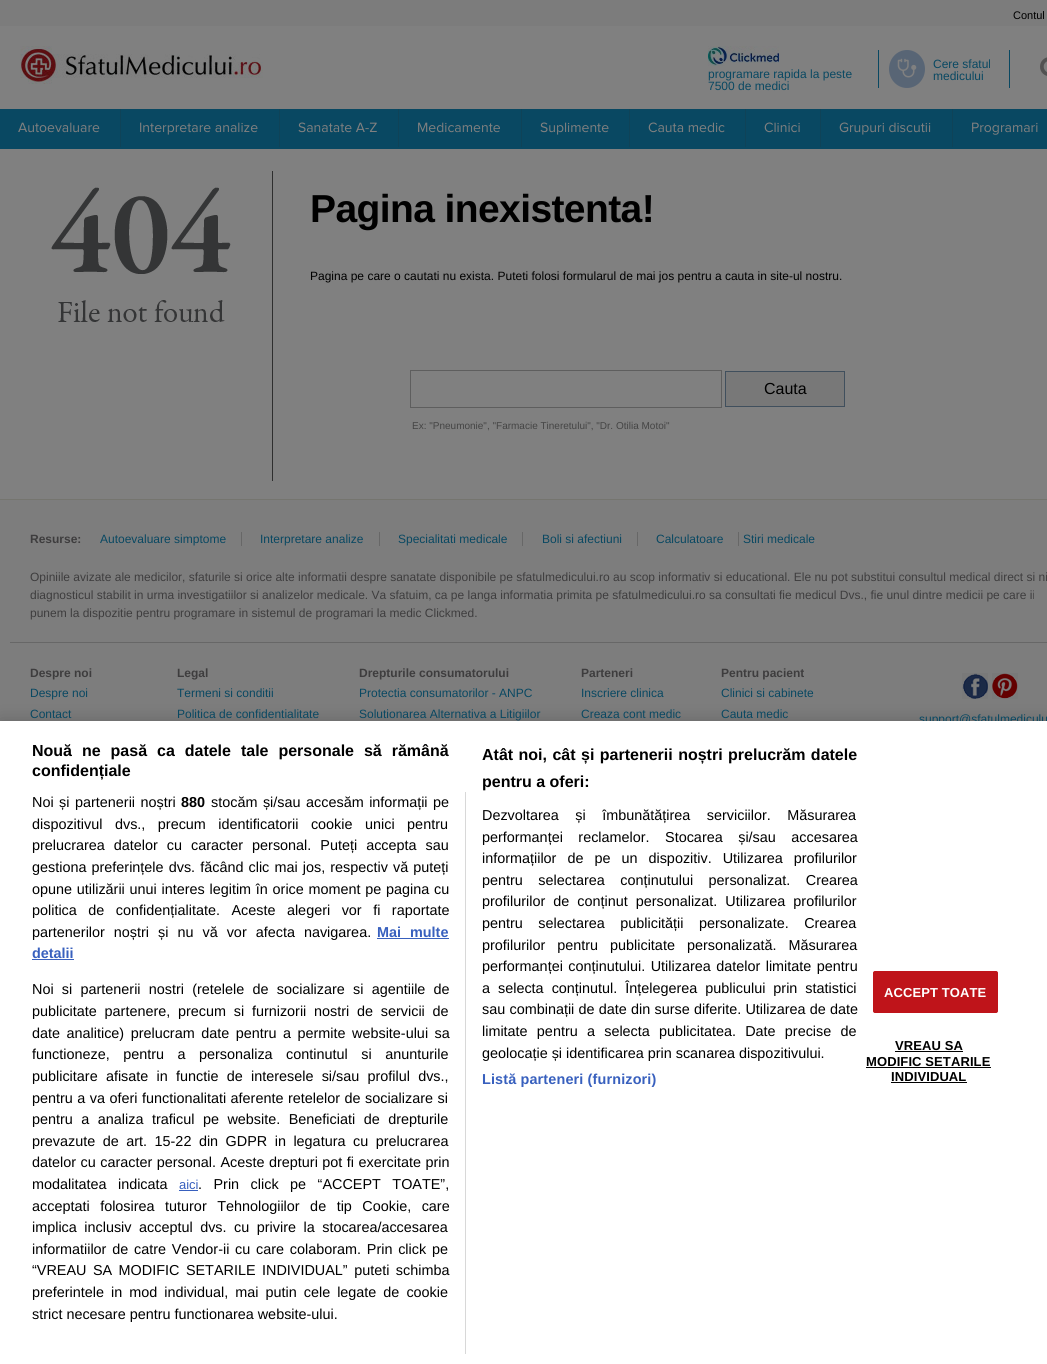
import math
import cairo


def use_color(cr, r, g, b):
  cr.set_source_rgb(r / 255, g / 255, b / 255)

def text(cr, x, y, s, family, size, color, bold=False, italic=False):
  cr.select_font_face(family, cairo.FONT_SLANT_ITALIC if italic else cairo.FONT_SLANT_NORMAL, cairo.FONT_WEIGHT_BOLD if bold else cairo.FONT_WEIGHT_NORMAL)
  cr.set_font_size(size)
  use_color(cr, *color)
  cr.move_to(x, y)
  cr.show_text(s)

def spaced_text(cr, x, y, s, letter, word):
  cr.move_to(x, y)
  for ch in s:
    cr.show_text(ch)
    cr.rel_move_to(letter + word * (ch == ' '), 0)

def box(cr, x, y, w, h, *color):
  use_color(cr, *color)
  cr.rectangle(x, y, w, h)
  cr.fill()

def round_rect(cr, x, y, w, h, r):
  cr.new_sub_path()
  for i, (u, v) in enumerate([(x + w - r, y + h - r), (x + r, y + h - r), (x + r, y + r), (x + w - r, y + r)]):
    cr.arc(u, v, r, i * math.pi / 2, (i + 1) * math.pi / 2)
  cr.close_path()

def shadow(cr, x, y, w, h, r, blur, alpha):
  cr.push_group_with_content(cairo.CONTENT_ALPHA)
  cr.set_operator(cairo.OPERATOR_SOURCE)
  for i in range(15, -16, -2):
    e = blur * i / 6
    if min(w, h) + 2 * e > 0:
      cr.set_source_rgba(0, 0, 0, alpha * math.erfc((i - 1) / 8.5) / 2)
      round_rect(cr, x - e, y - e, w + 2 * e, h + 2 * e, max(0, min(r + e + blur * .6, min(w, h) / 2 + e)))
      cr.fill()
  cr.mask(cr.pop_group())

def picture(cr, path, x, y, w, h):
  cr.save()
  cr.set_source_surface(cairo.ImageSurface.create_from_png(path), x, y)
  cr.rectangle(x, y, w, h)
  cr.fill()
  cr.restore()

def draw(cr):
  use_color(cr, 128, 128, 128)
  cr.paint()
  box(cr, 0, 0, 1047, 26, 124, 124, 124)
  picture(cr, "img_01.png", 20, 46, 243, 38)
  picture(cr, "img_02.png", 708, 46, 71, 20)
  box(cr, 1009, 50, 1, 38, 9, 72, 98)
  box(cr, 878, 50, 1, 38, 9, 72, 98)
  use_color(cr, 88, 101, 117)
  cr.new_path()
  cr.move_to(907, 50)
  cr.curve_to(917, 50, 925, 58.5, 925, 69)
  cr.curve_to(925, 79.5, 917, 88, 907, 88)
  cr.curve_to(897, 88, 889, 79.5, 889, 69)
  cr.curve_to(889, 58.5, 897, 50, 907, 50)
  cr.close_path()
  cr.fill()
  picture(cr, "img_03.png", 897, 58, 20, 20)
  picture(cr, "img_04.png", 1040, 57, 7, 19)
  box(cr, 0, 109, 1047, 40, 9, 72, 98)
  box(cr, 120, 109, 1, 38, 15, 67, 88)
  box(cr, 279, 109, 1, 38, 15, 67, 88)
  box(cr, 398, 109, 1, 38, 15, 67, 88)
  box(cr, 521, 109, 1, 38, 15, 67, 88)
  box(cr, 629, 109, 1, 38, 15, 67, 88)
  box(cr, 745, 109, 1, 38, 15, 67, 88)
  box(cr, 820, 109, 1, 38, 15, 67, 88)
  box(cr, 952, 109, 1, 38, 15, 67, 88)
  picture(cr, "img_05.png", 51, 171, 222, 310)
  cr.rectangle(410.5, 370.5, 311, 37)
  use_color(cr, 94, 94, 94)
  cr.set_line_width(1)
  cr.stroke()
  use_color(cr, 120, 120, 120)
  cr.rectangle(725.5, 371.5, 119, 35)
  cr.fill_preserve()
  use_color(cr, 64, 79, 93)
  cr.stroke()
  box(cr, 0, 500, 1047, 221, 125, 125, 125)
  box(cr, 0, 499, 1047, 1, 117, 117, 111)
  box(cr, 241, 532, 1, 14, 103, 103, 103)
  box(cr, 379, 532, 1, 14, 103, 103, 103)
  box(cr, 522, 532, 1, 14, 103, 103, 103)
  box(cr, 637, 532, 1, 14, 103, 103, 103)
  box(cr, 738, 532, 1, 14, 103, 103, 103)
  box(cr, 10, 642, 1037, 1, 103, 103, 103)
  picture(cr, "img_06.png", 962, 673, 26, 26)
  picture(cr, "img_07.png", 992, 673, 26, 26)
  use_color(cr, 0, 0, 0)
  shadow(cr, 0, 721, 1047, 643, 0, 9, 0.2)
  text(cr, 1013, 19, "Contul", "Liberation Sans", 11, (0, 0, 0))
  text(cr, 708, 78, "programare rapida la peste", "Liberation Sans", 12, (9, 72, 98))
  text(cr, 708, 90, "7500 de medici", "Liberation Sans", 12, (9, 72, 98))
  text(cr, 933, 68, "Cere sfatul", "Liberation Sans", 12, (9, 72, 98))
  text(cr, 933, 80, "medicului", "Liberation Sans", 12, (9, 72, 98))
  text(cr, 18, 132, "Autoevaluare", "Proxima Nova", 14, (128, 128, 128))
  text(cr, 139, 132, "Interpretare analize", "Proxima Nova", 14, (128, 128, 128))
  text(cr, 298, 132, "Sanatate A-Z", "Proxima Nova", 14, (128, 128, 128))
  text(cr, 417, 132, "Medicamente", "Proxima Nova", 14, (128, 128, 128))
  text(cr, 540, 132, "Suplimente", "Proxima Nova", 14, (128, 128, 128))
  text(cr, 648, 132, "Cauta medic", "Proxima Nova", 14, (128, 128, 128))
  text(cr, 764, 132, "Clinici", "Proxima Nova", 14, (128, 128, 128))
  text(cr, 839, 132, "Grupuri discutii", "Proxima Nova", 14, (128, 128, 128))
  text(cr, 971, 132, "Programari", "Proxima Nova", 14, (128, 128, 128))
  cr.select_font_face("Liberation Sans", cairo.FONT_SLANT_NORMAL, cairo.FONT_WEIGHT_BOLD)
  cr.set_font_size(39)
  use_color(cr, 0, 0, 0)
  spaced_text(cr, 310, 222, "Pagina inexistenta!", -0.6, 0)
  text(cr, 310, 280, "Pagina pe care o cautati nu exista. Puteti folosi formularul de mai jos pentru a cauta in site-ul nostru.", "Liberation Sans", 12, (0, 0, 0))
  text(cr, 764, 394, "Cauta", "Liberation Sans", 16, (0, 0, 0))
  text(cr, 412, 429, "Ex: \"Pneumonie\", \"Farmacie Tineretului\", \"Dr. Otilia Motoi\"", "Liberation Sans", 10, (68, 68, 68))
  text(cr, 30, 543, "Resurse:", "Liberation Sans", 12, (62, 61, 62), bold=True)
  text(cr, 100, 543, "Autoevaluare simptome", "Liberation Sans", 12, (9, 72, 98))
  text(cr, 260, 543, "Interpretare analize", "Liberation Sans", 12, (9, 72, 98))
  text(cr, 398, 543, "Specialitati medicale", "Liberation Sans", 12, (9, 72, 98))
  text(cr, 542, 543, "Boli si afectiuni", "Liberation Sans", 12, (9, 72, 98))
  text(cr, 656, 543, "Calculatoare", "Liberation Sans", 12, (9, 72, 98))
  text(cr, 743, 543, "Stiri medicale", "Liberation Sans", 12, (9, 72, 98))
  text(cr, 30, 581, "Opiniile avizate ale medicilor, sfaturile si orice alte informatii despre sanatate disponibile pe sfatulmedicului.ro au scop informativ si educational. Ele nu pot substitui consultul medical direct si ni", "Liberation Sans", 12, (62, 61, 62))
  text(cr, 30, 599, "diagnosticul stabilit in urma investigatiilor si analizelor medicale. Va sfatuim, ca pe langa informatia primita pe sfatulmedicului.ro sa consultati fie medicul Dvs., fie unul dintre medicii pe care ii", "Liberation Sans", 12, (62, 61, 62))
  text(cr, 30, 617, "punem la dispozitie pentru programare in sistemul de programari la medic Clickmed.", "Liberation Sans", 12, (62, 61, 62))
  text(cr, 30, 677, "Despre noi", "Liberation Sans", 12, (62, 61, 62), bold=True)
  text(cr, 30, 697, "Despre noi", "Liberation Sans", 12, (9, 72, 98))
  text(cr, 30, 718, "Contact", "Liberation Sans", 12, (9, 72, 98))
  text(cr, 177, 677, "Legal", "Liberation Sans", 12, (62, 61, 62), bold=True)
  text(cr, 177, 697, "Termeni si conditii", "Liberation Sans", 12, (9, 72, 98))
  text(cr, 177, 718, "Politica de confidentialitate", "Liberation Sans", 12, (9, 72, 98))
  text(cr, 359, 677, "Drepturile consumatorului", "Liberation Sans", 12, (62, 61, 62), bold=True)
  text(cr, 359, 697, "Protectia consumatorilor - ANPC", "Liberation Sans", 12, (9, 72, 98))
  text(cr, 359, 718, "Solutionarea Alternativa a Litigiilor", "Liberation Sans", 12, (9, 72, 98))
  text(cr, 581, 677, "Parteneri", "Liberation Sans", 12, (62, 61, 62), bold=True)
  text(cr, 581, 697, "Inscriere clinica", "Liberation Sans", 12, (9, 72, 98))
  text(cr, 581, 718, "Creaza cont medic", "Liberation Sans", 12, (9, 72, 98))
  text(cr, 721, 677, "Pentru pacient", "Liberation Sans", 12, (62, 61, 62), bold=True)
  text(cr, 721, 697, "Clinici si cabinete", "Liberation Sans", 12, (9, 72, 98))
  text(cr, 721, 718, "Cauta medic", "Liberation Sans", 12, (9, 72, 98))
  text(cr, 919, 723, "support@sfatulmediculu", "Liberation Sans", 12, (9, 72, 98))
  box(cr, 0, 721, 1047, 643, 255, 255, 255)
  cr.select_font_face("Liberation Sans", cairo.FONT_SLANT_NORMAL, cairo.FONT_WEIGHT_BOLD)
  cr.set_font_size(16)
  use_color(cr, 0, 0, 0)
  spaced_text(cr, 32, 756, "Nouă ne pasă ca datele tale personale să rămână", 0, 5.5)
  text(cr, 32, 776, "confidențiale", "Liberation Sans", 16, (0, 0, 0), bold=True)
  spaced_text(cr, 482, 760, "Atât noi, cât și partenerii noștri prelucrăm datele", 0, 1)
  text(cr, 482, 787, "pentru a oferi:", "Liberation Sans", 16, (0, 0, 0), bold=True)
  cr.select_font_face("Liberation Sans")
  cr.set_font_size(14.4)
  spaced_text(cr, 482, 820, "Dezvoltarea și îmbunătățirea serviciilor. Măsurarea", 0, 12.5)
  spaced_text(cr, 482, 842, "performanței reclamelor. Stocarea și/sau accesarea", 0, 11.5)
  spaced_text(cr, 482, 863, "informațiilor de pe un dispozitiv. Utilizarea profilurilor", 0, 7)
  spaced_text(cr, 482, 885, "pentru selectarea conținutului personalizat. Crearea", 0, 11.5)
  spaced_text(cr, 482, 906, "profilurilor de conținut personalizat. Utilizarea profilurilor", 0, 4)
  spaced_text(cr, 482, 928, "pentru selectarea publicității personalizate. Crearea", 0, 11.5)
  spaced_text(cr, 482, 950, "profilurilor pentru publicitate personalizată. Măsurarea", 0, 8)
  spaced_text(cr, 482, 971, "performanței conținutului. Utilizarea datelor limitate pentru", 0, 1.5)
  spaced_text(cr, 482, 993, "a selecta conținutul. Înțelegerea publicului prin statistici", 0, 4)
  spaced_text(cr, 482, 1014, "sau combinații de date din surse diferite. Utilizarea de date", 0, 0.25)
  spaced_text(cr, 482, 1036, "limitate pentru a selecta publicitatea. Date precise de", 0, 5.25)
  text(cr, 482, 1058, "geolocație și identificarea prin scanarea dispozitivului.", "Liberation Sans", 14.4, (0, 0, 0))
  cr.select_font_face("Liberation Sans", cairo.FONT_SLANT_NORMAL, cairo.FONT_WEIGHT_BOLD)
  use_color(cr, 56, 96, 190)
  spaced_text(cr, 482, 1084, "Listă parteneri (furnizori)", 0.15, 0)
  box(cr, 465, 792, 1, 562, 216, 216, 216)
  cr.select_font_face("Liberation Sans")
  use_color(cr, 0, 0, 0)
  spaced_text(cr, 32, 807, "Noi și partenerii noștri", 0, 1.5)
  text(cr, 181, 807, "880", "Liberation Sans", 14.4, (0, 0, 0), bold=True)
  cr.select_font_face("Liberation Sans")
  spaced_text(cr, 211, 807, "stocăm și/sau accesăm informații pe", 0, 1.5)
  spaced_text(cr, 32, 829, "dispozitivul dvs., precum identificatorii cookie unici pentru", 0, 8.5)
  spaced_text(cr, 32, 850, "prelucrarea datelor cu caracter personal. Puteți accepta sau", 0, 5)
  spaced_text(cr, 32, 872, "gestiona preferințele dvs. făcând clic mai jos, respectiv vă puteți", 0, 1.1)
  spaced_text(cr, 32, 894, "opune utilizării unui interes legitim în orice moment pe pagina cu", 0, 0.75)
  spaced_text(cr, 32, 915, "politica de confidențialitate. Aceste alegeri vor fi raportate", 0, 7.5)
  spaced_text(cr, 32, 937, "partenerilor noștri și nu vă vor afecta navigarea.", 0, 5)
  cr.select_font_face("Liberation Sans", cairo.FONT_SLANT_NORMAL, cairo.FONT_WEIGHT_BOLD)
  use_color(cr, 56, 96, 190)
  spaced_text(cr, 377, 937, "Mai multe", 0, 5)
  box(cr, 377, 938, 72, 1, 56, 96, 190)
  text(cr, 32, 958, "detalii", "Liberation Sans", 14.4, (56, 96, 190), bold=True)
  box(cr, 32, 959, 42, 1, 56, 96, 190)
  cr.select_font_face("Liberation Sans")
  use_color(cr, 0, 0, 0)
  spaced_text(cr, 32, 994, "Noi si partenerii nostri (retelele de socializare si agentiile de", 0, 4.25)
  spaced_text(cr, 32, 1016, "publicitate partenere, precum si furnizorii nostri de servicii de", 0, 3.75)
  spaced_text(cr, 32, 1038, "date analitice) prelucram date pentru a permite website-ului sa", 0, 2.5)
  spaced_text(cr, 32, 1059, "functioneze, pentru a personaliza continutul si anunturile", 0, 9.5)
  spaced_text(cr, 32, 1081, "publicitare afisate in functie de interesele si/sau profilul dvs.,", 0, 4.25)
  spaced_text(cr, 32, 1103, "pentru a va oferi functionalitati aferente retelelor de socializare si", 0, 0.5)
  spaced_text(cr, 32, 1124, "pentru a analiza traficul pe website. Beneficiati de drepturile", 0, 4.5)
  spaced_text(cr, 32, 1146, "prevazute de art. 15-22 din GDPR in legatura cu prelucrarea", 0, 3.5)
  spaced_text(cr, 32, 1167, "datelor cu caracter personal. Aceste drepturi pot fi exercitate prin", 0, 0.5)
  spaced_text(cr, 32, 1189, "modalitatea indicata", 0, 7.5)
  text(cr, 179, 1189, "aici", "Liberation Sans", 13, (56, 96, 190))
  box(cr, 179, 1190, 19, 1, 56, 96, 190)
  cr.set_font_size(14.4)
  use_color(cr, 0, 0, 0)
  spaced_text(cr, 198, 1189, ". Prin click pe “ACCEPT TOATE”,", 0, 7.5)
  spaced_text(cr, 32, 1211, "acceptati folosirea tuturor Tehnologiilor de tip Cookie, care", 0, 6.5)
  spaced_text(cr, 32, 1232, "implica inclusiv acceptul dvs. cu privire la stocarea/accesarea", 0, 3.5)
  spaced_text(cr, 32, 1254, "informatiilor de catre Vendor-ii cu care colaboram. Prin click pe", 0, 1.75)
  spaced_text(cr, 32, 1275, "“VREAU SA MODIFIC SETARILE INDIVIDUAL” puteti schimba", 0, 2.5)
  spaced_text(cr, 32, 1297, "preferintele in mod individual, mai putin cele legate de cookie", 0, 3)
  text(cr, 32, 1319, "strict necesare pentru functionarea website-ului.", "Liberation Sans", 14.4, (0, 0, 0))
  use_color(cr, 191, 20, 26)
  round_rect(cr, 873.5, 971.5, 124, 41, 1.5)
  cr.fill_preserve()
  cr.stroke()
  cr.select_font_face("Liberation Sans", cairo.FONT_SLANT_NORMAL, cairo.FONT_WEIGHT_BOLD)
  cr.set_font_size(13)
  use_color(cr, 255, 255, 255)
  spaced_text(cr, 884, 997, "ACCEPT TOATE", 0.1, 0)
  use_color(cr, 0, 0, 0)
  spaced_text(cr, 895, 1050, "VREAU SA", 0.1, 0)
  box(cr, 895, 1051, 68, 1, 0, 0, 0)
  spaced_text(cr, 866, 1066, "MODIFIC SETARILE", 0.1, 0)
  box(cr, 866, 1067, 125, 1, 0, 0, 0)
  spaced_text(cr, 891, 1081, "INDIVIDUAL", 0.1, 0)
  box(cr, 891, 1082, 76, 1, 0, 0, 0)


surface = cairo.ImageSurface(cairo.FORMAT_RGB24, 1047, 1364)
cr = cairo.Context(surface)
options = cairo.FontOptions()
options.set_hint_metrics(cairo.HINT_METRICS_OFF)
options.set_hint_style(cairo.HINT_STYLE_NONE)
cr.set_font_options(options)
cr.set_miter_limit(4)
draw(cr)
surface.write_to_png("out.png")
